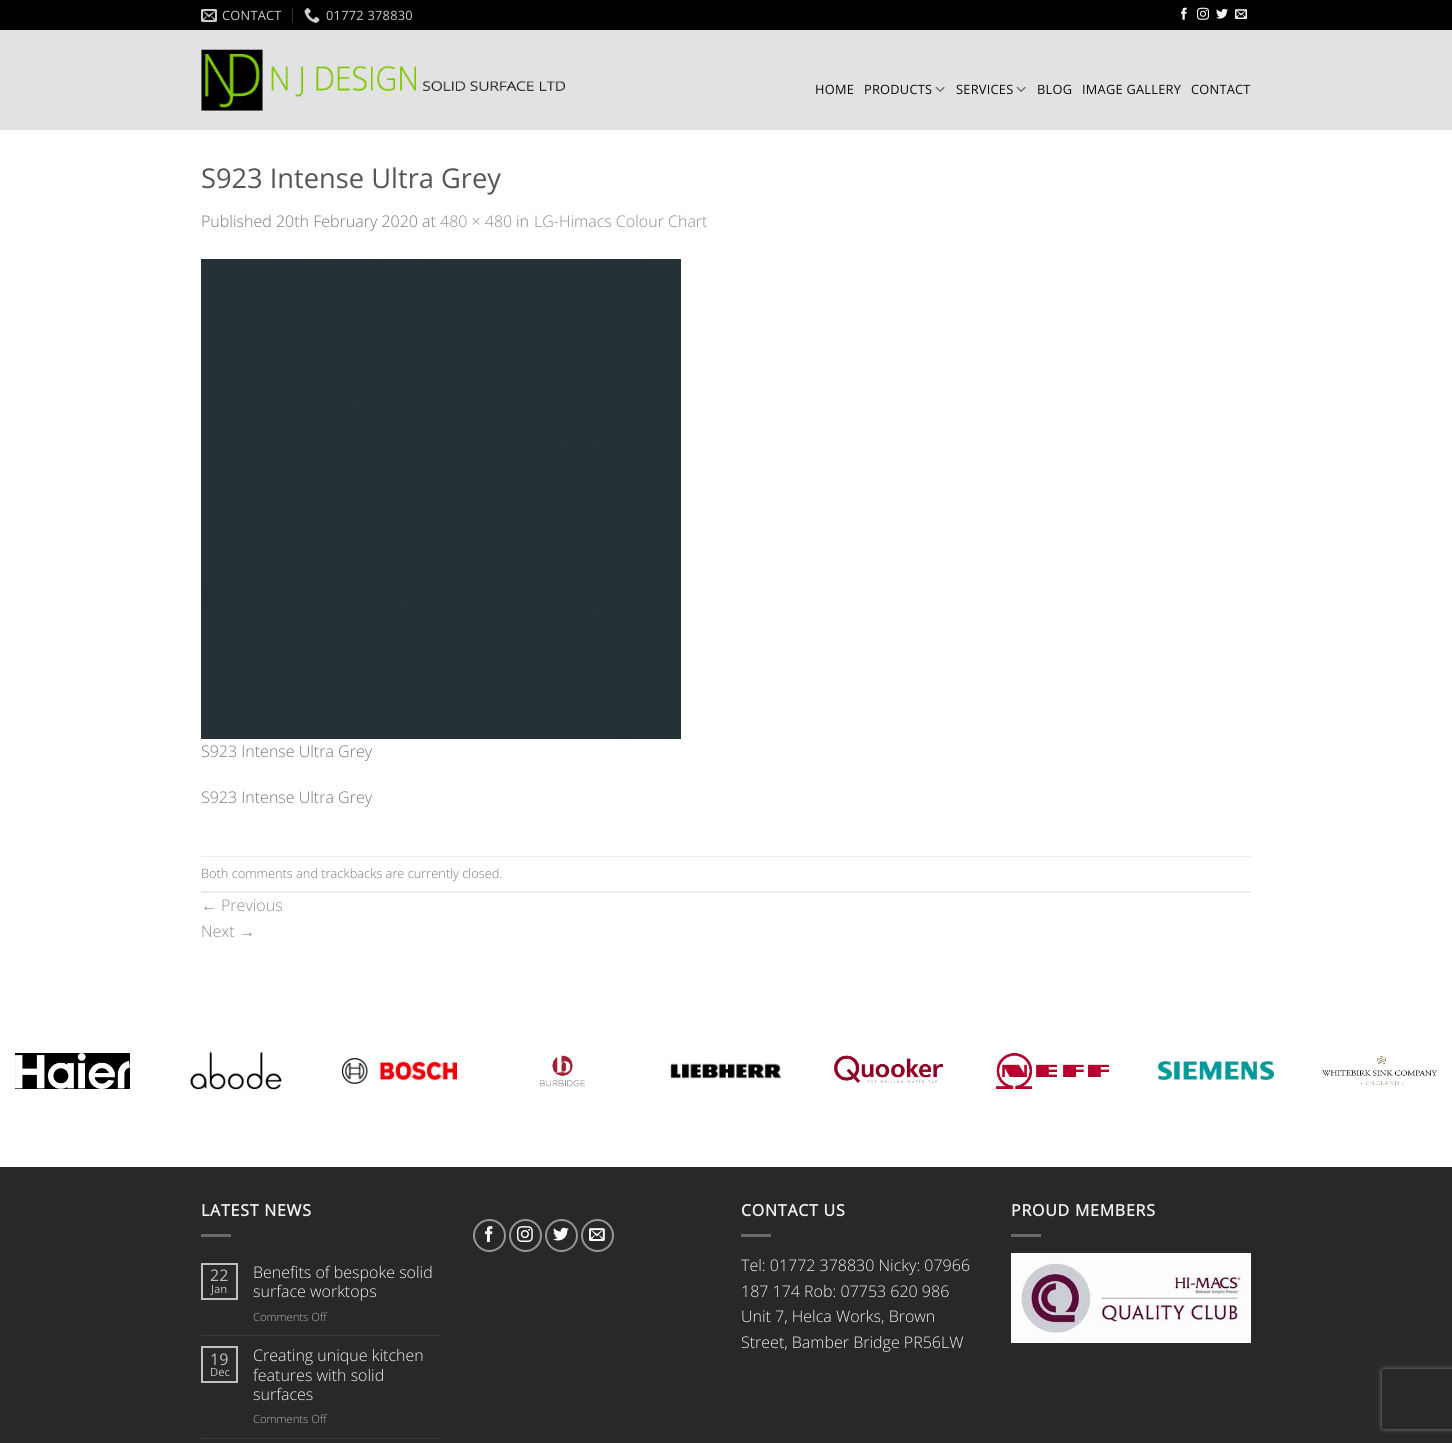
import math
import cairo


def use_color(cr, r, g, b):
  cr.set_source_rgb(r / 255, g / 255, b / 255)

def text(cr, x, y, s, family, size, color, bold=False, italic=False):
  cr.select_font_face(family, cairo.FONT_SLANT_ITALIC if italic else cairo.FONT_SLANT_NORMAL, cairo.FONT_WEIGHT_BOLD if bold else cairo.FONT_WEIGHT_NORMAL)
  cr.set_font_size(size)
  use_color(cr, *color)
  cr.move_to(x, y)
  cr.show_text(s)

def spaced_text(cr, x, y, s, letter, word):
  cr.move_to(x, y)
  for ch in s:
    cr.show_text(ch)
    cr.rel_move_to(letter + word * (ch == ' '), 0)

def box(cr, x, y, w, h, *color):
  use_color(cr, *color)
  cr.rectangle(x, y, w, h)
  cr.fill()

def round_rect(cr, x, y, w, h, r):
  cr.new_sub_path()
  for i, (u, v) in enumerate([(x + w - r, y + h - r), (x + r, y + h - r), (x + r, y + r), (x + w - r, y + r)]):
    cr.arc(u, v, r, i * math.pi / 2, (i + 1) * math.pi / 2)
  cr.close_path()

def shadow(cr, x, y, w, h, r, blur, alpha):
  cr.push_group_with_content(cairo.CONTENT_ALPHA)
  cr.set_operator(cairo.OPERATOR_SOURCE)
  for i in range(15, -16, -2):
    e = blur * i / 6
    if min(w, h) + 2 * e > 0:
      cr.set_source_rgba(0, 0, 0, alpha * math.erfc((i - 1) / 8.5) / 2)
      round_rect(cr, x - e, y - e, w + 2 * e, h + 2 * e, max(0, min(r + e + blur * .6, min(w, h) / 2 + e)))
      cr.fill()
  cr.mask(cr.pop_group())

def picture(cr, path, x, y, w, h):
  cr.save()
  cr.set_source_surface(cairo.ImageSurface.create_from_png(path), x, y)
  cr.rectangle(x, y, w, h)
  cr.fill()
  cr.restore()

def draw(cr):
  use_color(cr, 255, 255, 255)
  cr.paint()
  box(cr, 0, 0, 1452, 30, 0, 0, 0)
  picture(cr, "img_01.png", 201, 9, 16, 13)
  box(cr, 292, 8, 1, 15, 51, 51, 51)
  picture(cr, "img_02.png", 304, 8, 16, 15)
  picture(cr, "img_03.png", 1181, 7, 6, 13)
  picture(cr, "img_04.png", 1197, 7, 12, 13)
  picture(cr, "img_05.png", 1216, 8, 12, 11)
  picture(cr, "img_06.png", 1235, 9, 12, 10)
  box(cr, 0, 30, 1452, 100, 226, 226, 226)
  picture(cr, "img_07.png", 201, 49, 364, 62)
  picture(cr, "img_08.png", 935, 86, 10, 6)
  picture(cr, "img_08.png", 1016, 86, 10, 6)
  picture(cr, "img_09.png", 201, 259, 480, 480)
  box(cr, 201, 856, 1050, 1, 236, 236, 236)
  box(cr, 201, 891, 1050, 2, 236, 236, 236)
  picture(cr, "img_10.png", 15, 1053, 115, 36)
  picture(cr, "img_11.png", 190, 1051, 92, 39)
  picture(cr, "img_12.png", 342, 1058, 115, 26)
  picture(cr, "img_13.png", 540, 1055, 45, 32)
  picture(cr, "img_14.png", 670, 1063, 112, 16)
  picture(cr, "img_15.png", 834, 1055, 111, 28)
  picture(cr, "img_16.png", 995, 1052, 115, 38)
  picture(cr, "img_17.png", 1158, 1061, 116, 19)
  picture(cr, "img_18.png", 1322, 1056, 115, 30)
  box(cr, 0, 1168, 1452, 275, 40, 40, 40)
  box(cr, 0, 1167, 1452, 1, 38, 38, 38)
  box(cr, 201, 1234, 30, 3, 105, 105, 105)
  cr.rectangle(202, 1264, 35, 35)
  use_color(cr, 191, 191, 191)
  cr.stroke()
  box(cr, 201, 1335, 240, 1, 57, 57, 57)
  cr.rectangle(202, 1347, 35, 35)
  use_color(cr, 191, 191, 191)
  cr.stroke()
  box(cr, 201, 1438, 240, 1, 57, 57, 57)
  box(cr, 741, 1234, 30, 3, 105, 105, 105)
  box(cr, 1011, 1234, 30, 3, 105, 105, 105)
  picture(cr, "img_19.png", 1011, 1253, 240, 90)
  cr.arc(489.5, 1235.5, 15.5, 0, 2 * math.pi)
  use_color(cr, 148, 148, 148)
  cr.stroke()
  picture(cr, "img_20.png", 484, 1226, 9, 16)
  cr.arc(525.5, 1235.5, 15.5, 0, 2 * math.pi)
  cr.stroke()
  picture(cr, "img_21.png", 517, 1226, 16, 16)
  cr.arc(561.5, 1235.5, 15.5, 0, 2 * math.pi)
  cr.stroke()
  picture(cr, "img_22.png", 553, 1227, 16, 14)
  cr.arc(597.5, 1235.5, 15.5, 0, 2 * math.pi)
  cr.stroke()
  picture(cr, "img_23.png", 589, 1228, 16, 13)
  cr.save()
  cr.set_fill_rule(cairo.FILL_RULE_EVEN_ODD)
  cr.new_path()
  cr.move_to(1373, 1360)
  cr.line_to(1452, 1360)
  cr.line_to(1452, 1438)
  cr.line_to(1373, 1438)
  cr.close_path()
  cr.move_to(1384, 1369)
  cr.line_to(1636, 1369)
  cr.curve_to(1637, 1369, 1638, 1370, 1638, 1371)
  cr.line_to(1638, 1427)
  cr.curve_to(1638, 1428, 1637, 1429, 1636, 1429)
  cr.line_to(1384, 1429)
  cr.curve_to(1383, 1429, 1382, 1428, 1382, 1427)
  cr.line_to(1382, 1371)
  cr.curve_to(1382, 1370, 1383, 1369, 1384, 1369)
  cr.close_path()
  cr.clip()
  use_color(cr, 128, 128, 128)
  shadow(cr, 1382, 1369, 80, 60, 2, 2.5, 1)
  cr.restore()
  cr.select_font_face("Open Sans")
  cr.set_font_size(12.8)
  use_color(cr, 204, 204, 204)
  spaced_text(cr, 222, 20, "CONTACT", 0.25, 0)
  spaced_text(cr, 326, 20, "01772 378830", 0.25, 0)
  use_color(cr, 10, 10, 10)
  spaced_text(cr, 815, 94, "HOME", 0.25, 0)
  spaced_text(cr, 864, 94, "PRODUCTS", 0.25, 0)
  spaced_text(cr, 956, 94, "SERVICES", 0.25, 0)
  spaced_text(cr, 1037, 94, "BLOG", 0.25, 0)
  spaced_text(cr, 1082, 94, "IMAGE GALLERY", 0.25, 0)
  spaced_text(cr, 1191, 94, "CONTACT", 0.25, 0)
  text(cr, 201, 188, "S923 Intense Ultra Grey", "Open Sans", 27.25, (85, 85, 85))
  text(cr, 201, 227, "Published 20th February 2020 at", "Open Sans Light", 16, (119, 119, 119))
  text(cr, 440, 227, "480 × 480", "Open Sans Light", 16, (140, 140, 140))
  text(cr, 516, 227, "in", "Open Sans Light", 16, (119, 119, 119))
  text(cr, 534, 227, "LG-Himacs Colour Chart", "Open Sans Light", 16, (140, 140, 140))
  text(cr, 201, 757, "S923 Intense Ultra Grey", "Open Sans Light", 16, (119, 119, 119))
  text(cr, 201, 803, "S923 Intense Ultra Grey", "Open Sans Light", 16, (119, 119, 119))
  text(cr, 201, 878, "Both comments and trackbacks are currently closed.", "Open Sans Light", 12.8, (119, 119, 119))
  text(cr, 201, 911, "←", "Liberation Sans", 16, (140, 140, 140))
  text(cr, 221, 911, "Previous", "Open Sans Light", 16, (140, 140, 140))
  text(cr, 201, 937, "Next", "Open Sans Light", 16, (140, 140, 140))
  text(cr, 239, 937, "→", "Liberation Sans", 16, (140, 140, 140))
  cr.select_font_face("Open Sans", cairo.FONT_SLANT_NORMAL, cairo.FONT_WEIGHT_BOLD)
  use_color(cr, 241, 241, 241)
  spaced_text(cr, 201, 1216, "LATEST NEWS", 0.75, 0)
  text(cr, 210, 1281, "22", "Open Sans", 16, (191, 191, 191))
  text(cr, 211, 1293, "Jan", "Open Sans", 11.25, (191, 191, 191))
  text(cr, 253, 1278, "Benefits of bespoke solid", "Open Sans Light", 16, (241, 241, 241))
  text(cr, 253, 1297, "surface worktops", "Open Sans Light", 16, (241, 241, 241))
  text(cr, 253, 1321, "Comments Off", "Open Sans Light", 11.25, (181, 181, 181))
  text(cr, 210, 1365, "19", "Open Sans", 16, (191, 191, 191))
  text(cr, 210, 1376, "Dec", "Open Sans", 11.25, (191, 191, 191))
  text(cr, 253, 1361, "Creating unique kitchen", "Open Sans Light", 16, (241, 241, 241))
  text(cr, 253, 1381, "features with solid", "Open Sans Light", 16, (241, 241, 241))
  text(cr, 253, 1400, "surfaces", "Open Sans Light", 16, (241, 241, 241))
  text(cr, 253, 1423, "Comments Off", "Open Sans Light", 11.25, (181, 181, 181))
  cr.select_font_face("Open Sans", cairo.FONT_SLANT_NORMAL, cairo.FONT_WEIGHT_BOLD)
  cr.set_font_size(16)
  use_color(cr, 241, 241, 241)
  spaced_text(cr, 741, 1216, "CONTACT US", 0.75, 0)
  text(cr, 741, 1271, "Tel: 01772 378830 Nicky: 07966", "Open Sans Light", 16, (241, 241, 241))
  text(cr, 741, 1297, "187 174 Rob: 07753 620 986", "Open Sans Light", 16, (241, 241, 241))
  text(cr, 741, 1322, "Unit 7, Helca Works, Brown", "Open Sans Light", 16, (241, 241, 241))
  text(cr, 741, 1348, "Street, Bamber Bridge PR56LW", "Open Sans Light", 16, (241, 241, 241))
  cr.select_font_face("Open Sans", cairo.FONT_SLANT_NORMAL, cairo.FONT_WEIGHT_BOLD)
  spaced_text(cr, 1011, 1216, "PROUD MEMBERS", 0.75, 0)


surface = cairo.ImageSurface(cairo.FORMAT_RGB24, 1452, 1443)
cr = cairo.Context(surface)
options = cairo.FontOptions()
options.set_hint_metrics(cairo.HINT_METRICS_OFF)
options.set_hint_style(cairo.HINT_STYLE_NONE)
cr.set_font_options(options)
cr.set_miter_limit(4)
draw(cr)
surface.write_to_png("out.png")
